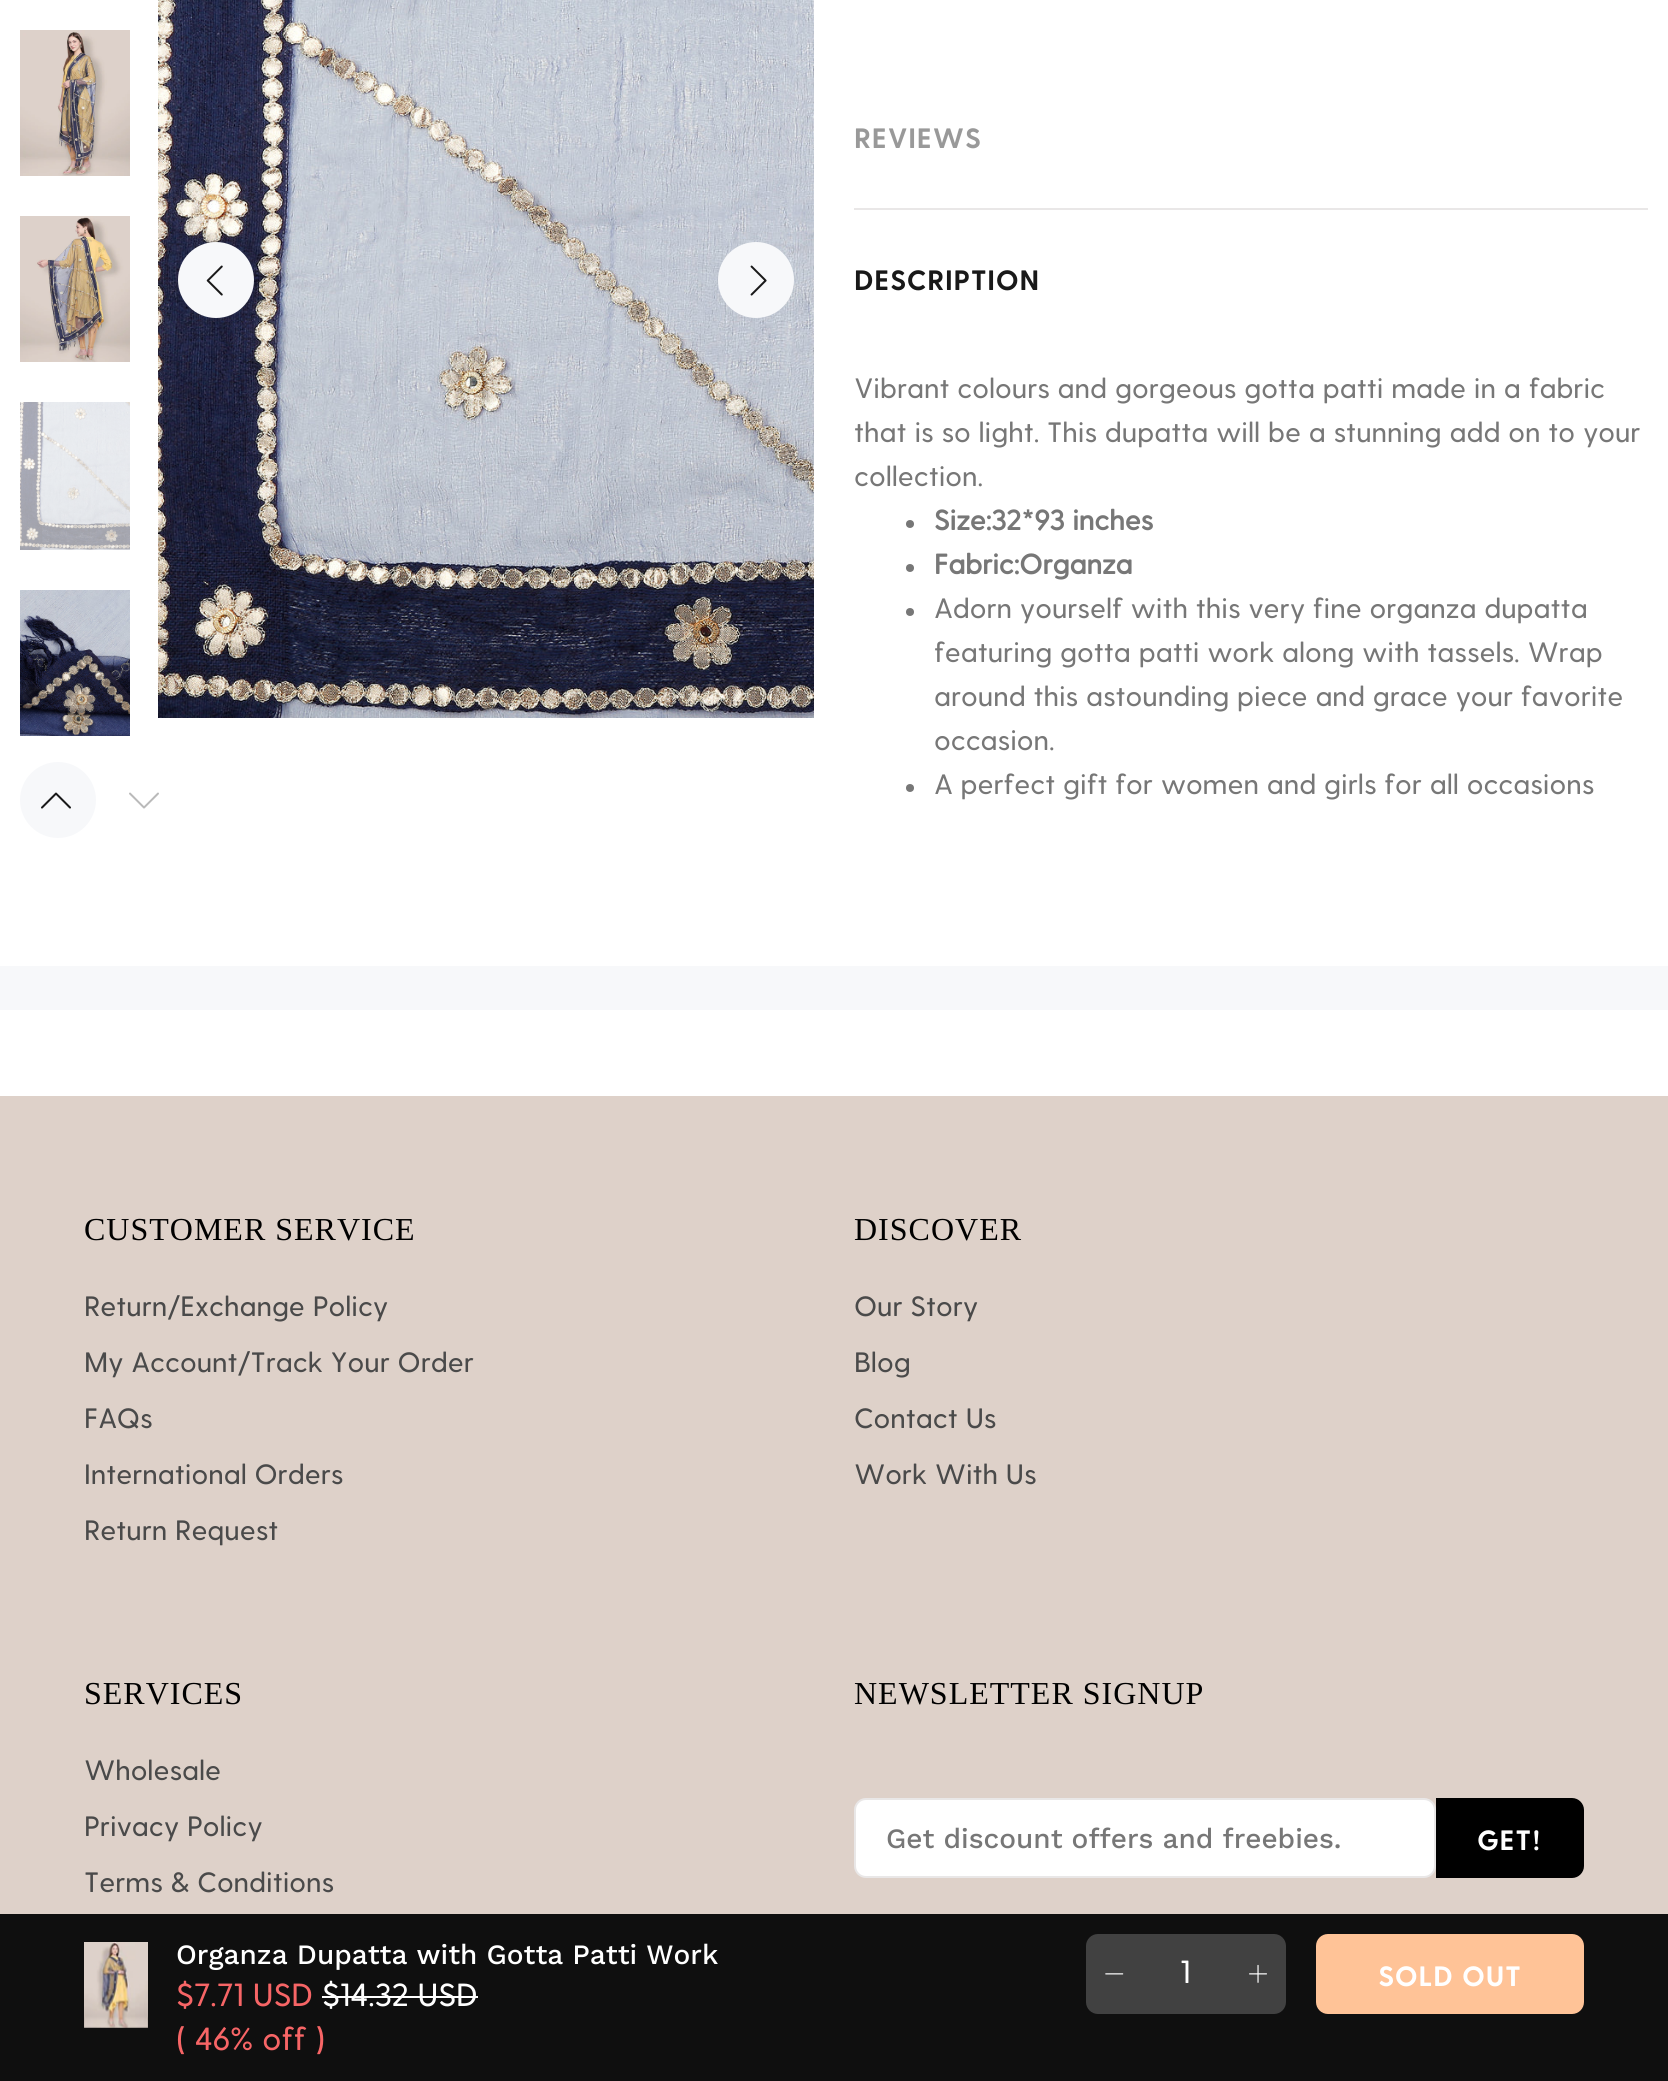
import math
import cairo


def use_color(cr, r, g, b):
  cr.set_source_rgb(r / 255, g / 255, b / 255)

def text(cr, x, y, s, family, size, color, bold=False, italic=False):
  cr.select_font_face(family, cairo.FONT_SLANT_ITALIC if italic else cairo.FONT_SLANT_NORMAL, cairo.FONT_WEIGHT_BOLD if bold else cairo.FONT_WEIGHT_NORMAL)
  cr.set_font_size(size)
  use_color(cr, *color)
  cr.move_to(x, y)
  cr.show_text(s)

def spaced_text(cr, x, y, s, letter, word):
  cr.move_to(x, y)
  for ch in s:
    cr.show_text(ch)
    cr.rel_move_to(letter + word * (ch == ' '), 0)

def box(cr, x, y, w, h, *color):
  use_color(cr, *color)
  cr.rectangle(x, y, w, h)
  cr.fill()

def round_rect(cr, x, y, w, h, r):
  cr.new_sub_path()
  for i, (u, v) in enumerate([(x + w - r, y + h - r), (x + r, y + h - r), (x + r, y + r), (x + w - r, y + r)]):
    cr.arc(u, v, r, i * math.pi / 2, (i + 1) * math.pi / 2)
  cr.close_path()

def picture(cr, path, x, y, w, h):
  cr.save()
  cr.set_source_surface(cairo.ImageSurface.create_from_png(path), x, y)
  cr.rectangle(x, y, w, h)
  cr.fill()
  cr.restore()

def draw(cr):
  use_color(cr, 255, 255, 255)
  cr.paint()
  picture(cr, "img_01.png", 20, 30, 110, 146)
  picture(cr, "img_02.png", 20, 216, 110, 146)
  picture(cr, "img_03.png", 20, 402, 110, 148)
  picture(cr, "img_04.png", 20, 590, 110, 146)
  use_color(cr, 247, 248, 250)
  cr.arc(58, 800, 38, 0, 2 * math.pi)
  cr.fill()
  picture(cr, "img_05.png", 41, 792, 30, 17)
  picture(cr, "img_06.png", 129, 792, 30, 17)
  picture(cr, "img_07.png", 158, 0, 656, 718)
  cr.arc(216, 280, 38, 0, 2 * math.pi)
  cr.fill()
  picture(cr, "img_08.png", 206, 265, 17, 31)
  cr.arc(756, 280, 38, 0, 2 * math.pi)
  cr.fill()
  picture(cr, "img_09.png", 750, 265, 17, 31)
  box(cr, 854, 208, 794, 2, 233, 231, 231)
  use_color(cr, 119, 119, 119)
  cr.arc(910, 524, 4, 0, 2 * math.pi)
  cr.fill()
  cr.arc(910, 568, 4, 0, 2 * math.pi)
  cr.fill()
  cr.arc(910, 612, 4, 0, 2 * math.pi)
  cr.fill()
  cr.arc(910, 788, 4, 0, 2 * math.pi)
  cr.fill()
  box(cr, 0, 966, 1668, 44, 247, 248, 250)
  box(cr, 0, 1914, 1668, 167, 15, 15, 15)
  picture(cr, "img_10.png", 84, 1942, 64, 86)
  box(cr, 322, 1996, 156, 2, 255, 255, 255)
  use_color(cr, 65, 65, 65)
  round_rect(cr, 1086, 1934, 200, 80, 12)
  cr.fill()
  picture(cr, "img_11.png", 1105, 1973, 19, 2)
  picture(cr, "img_12.png", 1249, 1964, 18, 19)
  use_color(cr, 255, 195, 151)
  round_rect(cr, 1316, 1934, 268, 80, 12)
  cr.fill()
  box(cr, 0, 1096, 1668, 818, 222, 209, 201)
  use_color(cr, 255, 255, 255)
  round_rect(cr, 855, 1799, 580, 78, 11)
  cr.fill_preserve()
  use_color(cr, 233, 231, 231)
  cr.stroke()
  use_color(cr, 0, 0, 0)
  cr.new_path()
  cr.move_to(1437, 1799)
  cr.line_to(1572, 1799)
  cr.curve_to(1578, 1799, 1583, 1804, 1583, 1810)
  cr.line_to(1583, 1866)
  cr.curve_to(1583, 1872, 1578, 1877, 1572, 1877)
  cr.line_to(1437, 1877)
  cr.close_path()
  cr.fill_preserve()
  cr.stroke()
  cr.select_font_face("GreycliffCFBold", cairo.FONT_SLANT_NORMAL, cairo.FONT_WEIGHT_BOLD)
  cr.set_font_size(28)
  use_color(cr, 153, 153, 153)
  spaced_text(cr, 854, 148, "REVIEWS", 0.75, 0)
  use_color(cr, 25, 25, 25)
  spaced_text(cr, 854, 290, "DESCRIPTION", 0.75, 0)
  text(cr, 854, 398, "Vibrant colours and gorgeous gotta patti made in a fabric", "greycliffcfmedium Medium", 28, (119, 119, 119))
  text(cr, 854, 442, "that is so light. This dupatta will be a stunning add on to your", "greycliffcfmedium Medium", 28, (119, 119, 119))
  text(cr, 854, 486, "collection.", "greycliffcfmedium Medium", 28, (119, 119, 119))
  text(cr, 934, 530, "Size:32*93 inches", "greycliffcfmedium", 28, (119, 119, 119), bold=True)
  text(cr, 934, 574, "Fabric:Organza", "greycliffcfmedium", 28, (119, 119, 119), bold=True)
  text(cr, 934, 618, "Adorn yourself with this very fine organza dupatta", "greycliffcfmedium Medium", 28, (119, 119, 119))
  text(cr, 934, 662, "featuring gotta patti work along with tassels. Wrap", "greycliffcfmedium Medium", 28, (119, 119, 119))
  text(cr, 934, 706, "around this astounding piece and grace your favorite", "greycliffcfmedium Medium", 28, (119, 119, 119))
  text(cr, 934, 750, "occasion.", "greycliffcfmedium Medium", 28, (119, 119, 119))
  text(cr, 934, 794, "A perfect gift for women and girls for all occasions", "greycliffcfmedium Medium", 28, (119, 119, 119))
  text(cr, 176, 1964, "Organza Dupatta with Gotta Patti Work", "Work Sans Medium", 28, (255, 255, 255))
  text(cr, 176, 2006, "$7.71 USD", "greycliffcfmedium Medium", 32, (247, 101, 102))
  text(cr, 322, 2006, "$14.32 USD", "greycliffcfmedium Medium", 32, (255, 255, 255))
  text(cr, 176, 2050, "( 46% off )", "greycliffcfmedium Medium", 32, (247, 101, 102))
  text(cr, 1180, 1983, "1", "greycliffcfmedium Medium", 32, (255, 255, 255))
  cr.select_font_face("GreycliffCFBold", cairo.FONT_SLANT_NORMAL, cairo.FONT_WEIGHT_BOLD)
  cr.set_font_size(28)
  spaced_text(cr, 1378, 1986, "SOLD OUT", 0.75, 0)
  cr.select_font_face("Liberation Serif")
  cr.set_font_size(32)
  use_color(cr, 0, 0, 0)
  spaced_text(cr, 84, 1240, "CUSTOMER SERVICE", 1, 0)
  text(cr, 84, 1316, "Return/Exchange Policy", "greycliffcfmedium Medium", 28, (74, 74, 74))
  text(cr, 84, 1372, "My Account/Track Your Order", "greycliffcfmedium Medium", 28, (74, 74, 74))
  text(cr, 84, 1428, "FAQs", "greycliffcfmedium Medium", 28, (74, 74, 74))
  text(cr, 84, 1484, "International Orders", "greycliffcfmedium Medium", 28, (74, 74, 74))
  text(cr, 84, 1540, "Return Request", "greycliffcfmedium Medium", 28, (74, 74, 74))
  cr.select_font_face("Liberation Serif")
  cr.set_font_size(32)
  use_color(cr, 0, 0, 0)
  spaced_text(cr, 854, 1240, "DISCOVER", 1, 0)
  text(cr, 854, 1316, "Our Story", "greycliffcfmedium Medium", 28, (74, 74, 74))
  text(cr, 854, 1372, "Blog", "greycliffcfmedium Medium", 28, (74, 74, 74))
  text(cr, 854, 1428, "Contact Us", "greycliffcfmedium Medium", 28, (74, 74, 74))
  text(cr, 854, 1484, "Work With Us", "greycliffcfmedium Medium", 28, (74, 74, 74))
  cr.select_font_face("Liberation Serif")
  cr.set_font_size(32)
  use_color(cr, 0, 0, 0)
  spaced_text(cr, 84, 1704, "SERVICES", 1, 0)
  text(cr, 84, 1780, "Wholesale", "greycliffcfmedium Medium", 28, (74, 74, 74))
  text(cr, 84, 1836, "Privacy Policy", "greycliffcfmedium Medium", 28, (74, 74, 74))
  text(cr, 84, 1892, "Terms & Conditions", "greycliffcfmedium Medium", 28, (74, 74, 74))
  cr.select_font_face("Liberation Serif")
  cr.set_font_size(32)
  use_color(cr, 0, 0, 0)
  spaced_text(cr, 854, 1704, "NEWSLETTER SIGNUP", 1, 0)
  text(cr, 886, 1848, "Get discount offers and freebies.", "Work Sans Medium", 28, (119, 119, 119))
  cr.select_font_face("GreycliffCFBold", cairo.FONT_SLANT_NORMAL, cairo.FONT_WEIGHT_BOLD)
  use_color(cr, 255, 255, 255)
  spaced_text(cr, 1477, 1850, "GET!", 0.75, 0)


surface = cairo.ImageSurface(cairo.FORMAT_RGB24, 1668, 2081)
cr = cairo.Context(surface)
options = cairo.FontOptions()
options.set_hint_metrics(cairo.HINT_METRICS_OFF)
options.set_hint_style(cairo.HINT_STYLE_NONE)
cr.set_font_options(options)
cr.set_miter_limit(4)
draw(cr)
surface.write_to_png("out.png")
